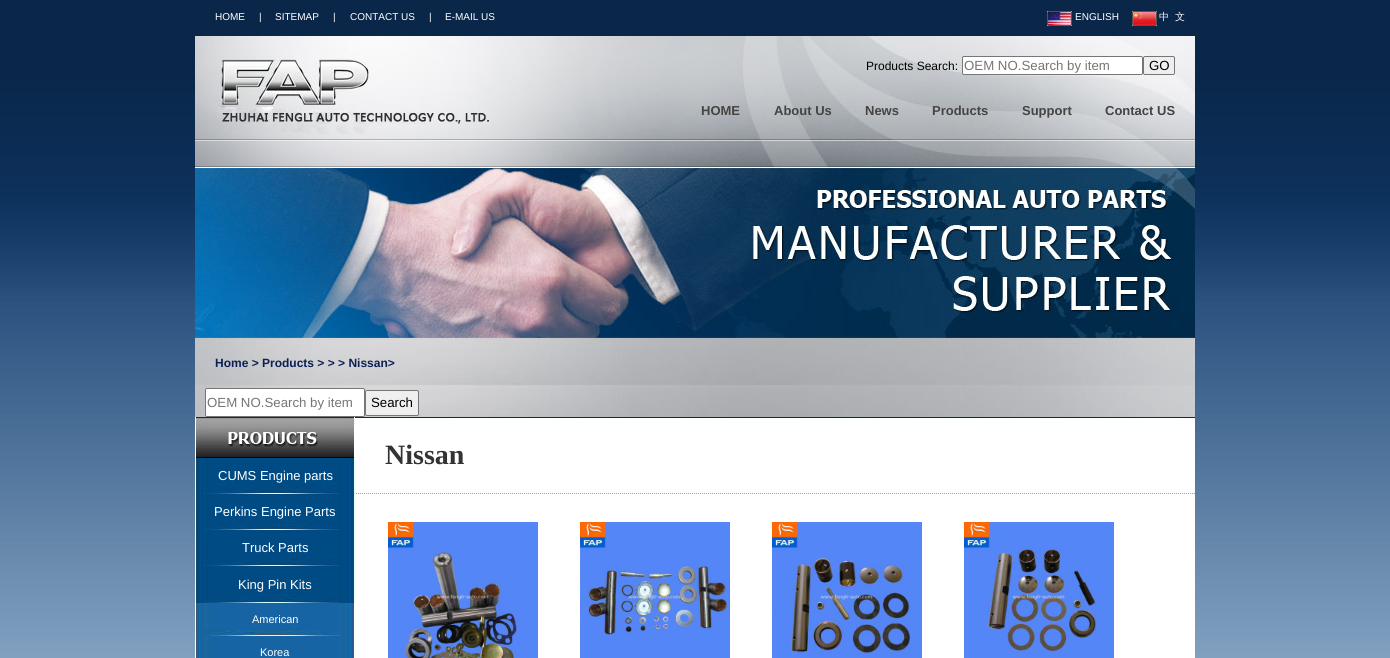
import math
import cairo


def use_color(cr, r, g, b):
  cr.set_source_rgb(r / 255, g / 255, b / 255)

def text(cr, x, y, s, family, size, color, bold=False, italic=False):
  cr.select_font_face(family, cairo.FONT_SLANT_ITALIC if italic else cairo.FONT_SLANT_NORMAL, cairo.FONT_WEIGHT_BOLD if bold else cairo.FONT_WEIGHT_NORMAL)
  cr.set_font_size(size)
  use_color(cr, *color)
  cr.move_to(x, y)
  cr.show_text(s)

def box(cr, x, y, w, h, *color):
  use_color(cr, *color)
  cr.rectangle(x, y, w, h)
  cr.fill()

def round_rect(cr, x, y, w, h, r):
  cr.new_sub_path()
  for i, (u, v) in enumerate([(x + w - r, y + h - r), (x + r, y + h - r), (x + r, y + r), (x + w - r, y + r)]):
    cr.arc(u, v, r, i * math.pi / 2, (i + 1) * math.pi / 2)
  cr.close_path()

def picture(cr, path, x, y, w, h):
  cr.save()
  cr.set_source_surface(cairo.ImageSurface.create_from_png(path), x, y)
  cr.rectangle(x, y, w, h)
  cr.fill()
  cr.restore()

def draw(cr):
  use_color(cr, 255, 255, 255)
  cr.paint()
  picture(cr, "img_01.png", 0, 0, 1390, 658)
  box(cr, 195, 494, 1000, 164, 255, 255, 255)
  picture(cr, "img_02.png", 1047, 11, 25, 15)
  picture(cr, "img_03.png", 1132, 11, 25, 15)
  picture(cr, "img_04.png", 195, 36, 402, 105)
  picture(cr, "img_05.png", 597, 36, 598, 105)
  round_rect(cr, 962.5, 56.5, 180, 18, 1.5)
  cr.fill_preserve()
  use_color(cr, 118, 118, 118)
  cr.set_line_width(1)
  cr.stroke()
  use_color(cr, 239, 239, 239)
  round_rect(cr, 1143.5, 56.5, 31, 18, 1.5)
  cr.fill_preserve()
  use_color(cr, 118, 118, 118)
  cr.stroke()
  picture(cr, "img_06.png", 195, 141, 1000, 27)
  picture(cr, "img_07.png", 195, 168, 1000, 170)
  picture(cr, "img_08.png", 195, 338, 1000, 50)
  picture(cr, "img_09.png", 195, 388, 1000, 29)
  use_color(cr, 255, 255, 255)
  round_rect(cr, 205.5, 388.5, 159, 28, 1.5)
  cr.fill_preserve()
  use_color(cr, 118, 118, 118)
  cr.stroke()
  use_color(cr, 239, 239, 239)
  round_rect(cr, 365.5, 390.5, 53, 25, 1.5)
  cr.fill_preserve()
  use_color(cr, 118, 118, 118)
  cr.stroke()
  picture(cr, "img_10.png", 355, 417, 840, 77)
  picture(cr, "img_11.png", 388, 522, 150, 136)
  picture(cr, "img_12.png", 580, 522, 150, 136)
  picture(cr, "img_13.png", 772, 522, 150, 136)
  picture(cr, "img_14.png", 964, 522, 150, 136)
  picture(cr, "img_15.png", 195, 417, 160, 41)
  picture(cr, "img_16.png", 195, 458, 160, 36)
  picture(cr, "img_16.png", 195, 494, 160, 36)
  picture(cr, "img_17.png", 195, 530, 160, 37)
  picture(cr, "img_16.png", 195, 567, 160, 36)
  picture(cr, "img_18.png", 196, 603, 158, 33)
  picture(cr, "img_19.png", 196, 636, 158, 22)
  text(cr, 215, 20, "HOME", "Liberation Sans", 10, (255, 255, 255))
  text(cr, 259, 20, "|", "Liberation Sans", 10, (255, 255, 255))
  text(cr, 275, 20, "SITEMAP", "Liberation Sans", 10, (255, 255, 255))
  text(cr, 333, 20, "|", "Liberation Sans", 10, (255, 255, 255))
  text(cr, 350, 20, "CONTACT US", "Liberation Sans", 10, (255, 255, 255))
  text(cr, 429, 20, "|", "Liberation Sans", 10, (255, 255, 255))
  text(cr, 445, 20, "E-MAIL US", "Liberation Sans", 10, (255, 255, 255))
  text(cr, 1075, 20, "ENGLISH", "Liberation Sans", 10, (255, 255, 255))
  text(cr, 1159, 20, "中", "WenQuanYi Zen Hei Medium", 10, (255, 255, 255))
  text(cr, 1175, 20, "文", "WenQuanYi Zen Hei Medium", 10, (255, 255, 255))
  text(cr, 866, 70, "Products Search:", "Liberation Sans", 12, (0, 0, 0))
  text(cr, 964, 70, "OEM NO.Search by item", "Liberation Sans", 13.25, (117, 117, 117))
  text(cr, 1149, 70, "GO", "Liberation Sans", 13.25, (0, 0, 0))
  text(cr, 701, 115, "HOME", "Liberation Sans", 13, (68, 68, 68), bold=True)
  text(cr, 774, 115, "About Us", "Liberation Sans", 13, (68, 68, 68), bold=True)
  text(cr, 865, 115, "News", "Liberation Sans", 13, (68, 68, 68), bold=True)
  text(cr, 932, 115, "Products", "Liberation Sans", 13, (68, 68, 68), bold=True)
  text(cr, 1022, 115, "Support", "Liberation Sans", 13, (68, 68, 68), bold=True)
  text(cr, 1105, 115, "Contact US", "Liberation Sans", 13, (68, 68, 68), bold=True)
  text(cr, 215, 367, "Home > Products > > > Nissan>", "Liberation Sans", 12, (11, 32, 84), bold=True)
  text(cr, 207, 407, "OEM NO.Search by item", "Liberation Sans", 13.25, (117, 117, 117))
  text(cr, 371, 407, "Search", "Liberation Sans", 13.25, (0, 0, 0))
  text(cr, 385, 464, "Nissan", "Liberation Serif", 28, (51, 51, 51), bold=True)
  text(cr, 218, 480, "CUMS Engine parts", "Liberation Sans", 13, (255, 255, 255))
  text(cr, 214, 516, "Perkins Engine Parts", "Liberation Sans", 13, (255, 255, 255))
  text(cr, 242, 552, "Truck Parts", "Liberation Sans", 13, (255, 255, 255))
  text(cr, 238, 589, "King Pin Kits", "Liberation Sans", 13, (255, 255, 255))
  text(cr, 252, 623, "American", "Liberation Sans", 11, (255, 255, 255))
  text(cr, 260, 656, "Korea", "Liberation Sans", 11, (255, 255, 255))


surface = cairo.ImageSurface(cairo.FORMAT_RGB24, 1390, 658)
cr = cairo.Context(surface)
options = cairo.FontOptions()
options.set_hint_metrics(cairo.HINT_METRICS_OFF)
options.set_hint_style(cairo.HINT_STYLE_NONE)
cr.set_font_options(options)
cr.set_miter_limit(4)
draw(cr)
surface.write_to_png("out.png")
